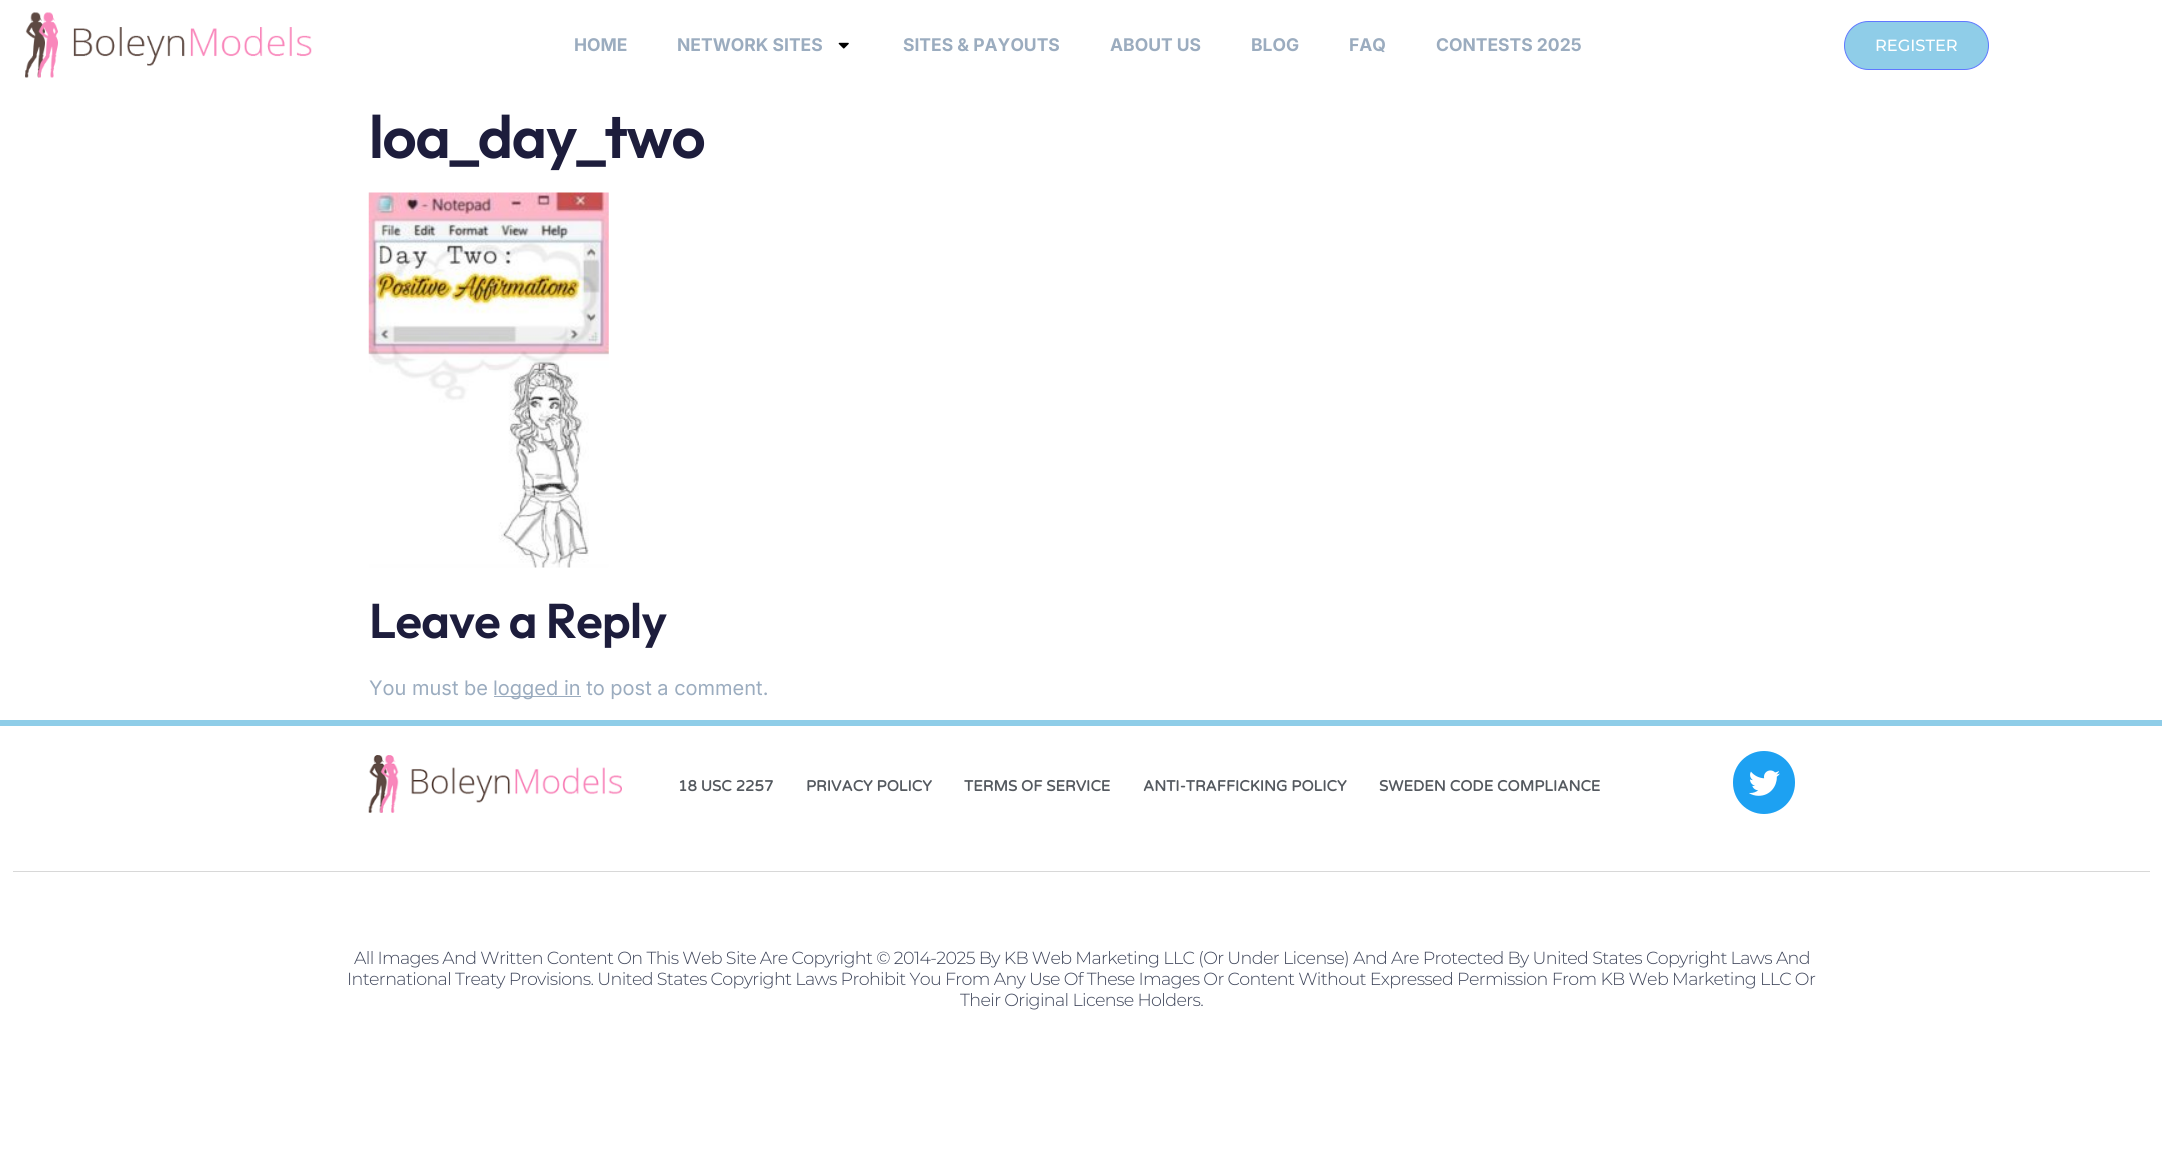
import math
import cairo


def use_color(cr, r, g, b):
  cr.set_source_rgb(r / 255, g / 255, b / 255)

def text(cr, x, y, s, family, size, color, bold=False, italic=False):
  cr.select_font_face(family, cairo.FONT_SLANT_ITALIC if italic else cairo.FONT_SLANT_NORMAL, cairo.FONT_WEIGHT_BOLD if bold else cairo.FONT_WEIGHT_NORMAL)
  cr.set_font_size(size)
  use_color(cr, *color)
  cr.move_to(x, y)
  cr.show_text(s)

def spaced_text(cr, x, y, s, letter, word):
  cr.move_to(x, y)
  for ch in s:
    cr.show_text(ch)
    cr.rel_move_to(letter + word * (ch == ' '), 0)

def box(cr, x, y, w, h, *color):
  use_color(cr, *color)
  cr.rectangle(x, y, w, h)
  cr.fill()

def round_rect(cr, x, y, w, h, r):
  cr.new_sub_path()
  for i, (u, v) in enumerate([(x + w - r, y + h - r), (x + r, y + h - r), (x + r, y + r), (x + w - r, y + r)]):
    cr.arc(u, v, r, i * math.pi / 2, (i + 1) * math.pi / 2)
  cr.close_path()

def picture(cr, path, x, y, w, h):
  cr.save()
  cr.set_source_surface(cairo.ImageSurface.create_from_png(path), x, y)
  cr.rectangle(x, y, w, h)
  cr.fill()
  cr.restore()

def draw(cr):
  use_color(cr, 255, 255, 255)
  cr.paint()
  picture(cr, "img_01.png", 25, 12, 287, 66)
  picture(cr, "img_02.png", 838, 42, 11, 7)
  use_color(cr, 143, 205, 232)
  round_rect(cr, 1844.5, 21.5, 144, 48, 24)
  cr.fill_preserve()
  use_color(cr, 96, 120, 255)
  cr.set_line_width(1)
  cr.stroke()
  picture(cr, "img_03.png", 368, 192, 241, 376)
  box(cr, 494, 696, 87, 1, 155, 172, 191)
  box(cr, 0, 720, 2162, 6, 143, 205, 232)
  picture(cr, "img_04.png", 368, 755, 254, 58)
  use_color(cr, 29, 161, 242)
  round_rect(cr, 1733, 751, 62, 63, 31)
  cr.fill()
  picture(cr, "img_05.png", 1749, 770, 31, 26)
  box(cr, 13, 871, 2137, 1, 216, 216, 216)
  text(cr, 574, 51, "HOME", "Inter", 17.5, (155, 172, 191), bold=True)
  text(cr, 677, 51, "NETWORK SITES", "Inter", 17.5, (155, 172, 191), bold=True)
  text(cr, 903, 51, "SITES & PAYOUTS", "Inter", 17.5, (155, 172, 191), bold=True)
  text(cr, 1110, 51, "ABOUT US", "Inter", 17.5, (155, 172, 191), bold=True)
  text(cr, 1251, 51, "BLOG", "Inter", 17.5, (155, 172, 191), bold=True)
  text(cr, 1349, 51, "FAQ", "Inter", 17.5, (155, 172, 191), bold=True)
  text(cr, 1436, 51, "CONTESTS 2025", "Inter", 17.5, (155, 172, 191), bold=True)
  text(cr, 1875, 51, "REGISTER", "Montserrat Medium", 16.25, (255, 255, 255))
  cr.select_font_face("Outfit SemiBold")
  cr.set_font_size(60)
  use_color(cr, 29, 29, 60)
  spaced_text(cr, 369, 158, "loa_day_two", -1.25, 0)
  cr.set_font_size(48.75)
  spaced_text(cr, 369, 638, "Leave a Reply", -0.62, 0)
  text(cr, 369, 695, "You must be", "Inter", 20, (155, 172, 191))
  text(cr, 493, 695, "logged in to post a comment.", "Inter", 20, (155, 172, 191))
  text(cr, 678, 791, "18 USC 2257", "Varela Round", 15, (84, 89, 95), bold=True)
  text(cr, 806, 791, "PRIVACY POLICY", "Varela Round", 15, (84, 89, 95), bold=True)
  text(cr, 964, 791, "TERMS OF SERVICE", "Varela Round", 15, (84, 89, 95), bold=True)
  text(cr, 1143, 791, "ANTI-TRAFFICKING POLICY", "Varela Round", 15, (84, 89, 95), bold=True)
  text(cr, 1379, 791, "SWEDEN CODE COMPLIANCE", "Varela Round", 15, (84, 89, 95), bold=True)
  cr.select_font_face("Montserrat Light")
  cr.set_font_size(17.5)
  use_color(cr, 61, 68, 89)
  spaced_text(cr, 354, 964, "All Images And Written Content On This Web Site Are Copyright © 2014-2025 By KB Web Marketing LLC (Or Under License) And Are Protected By United States Copyright Laws And", -0.62, 0)
  spaced_text(cr, 347, 985, "International Treaty Provisions. United States Copyright Laws Prohibit You From Any Use Of These Images Or Content Without Expressed Permission From KB Web Marketing LLC Or", -0.62, 0)
  spaced_text(cr, 960, 1006, "Their Original License Holders.", -0.62, 0)


surface = cairo.ImageSurface(cairo.FORMAT_RGB24, 2162, 1156)
cr = cairo.Context(surface)
options = cairo.FontOptions()
options.set_hint_metrics(cairo.HINT_METRICS_OFF)
options.set_hint_style(cairo.HINT_STYLE_NONE)
cr.set_font_options(options)
cr.set_miter_limit(4)
draw(cr)
surface.write_to_png("out.png")
